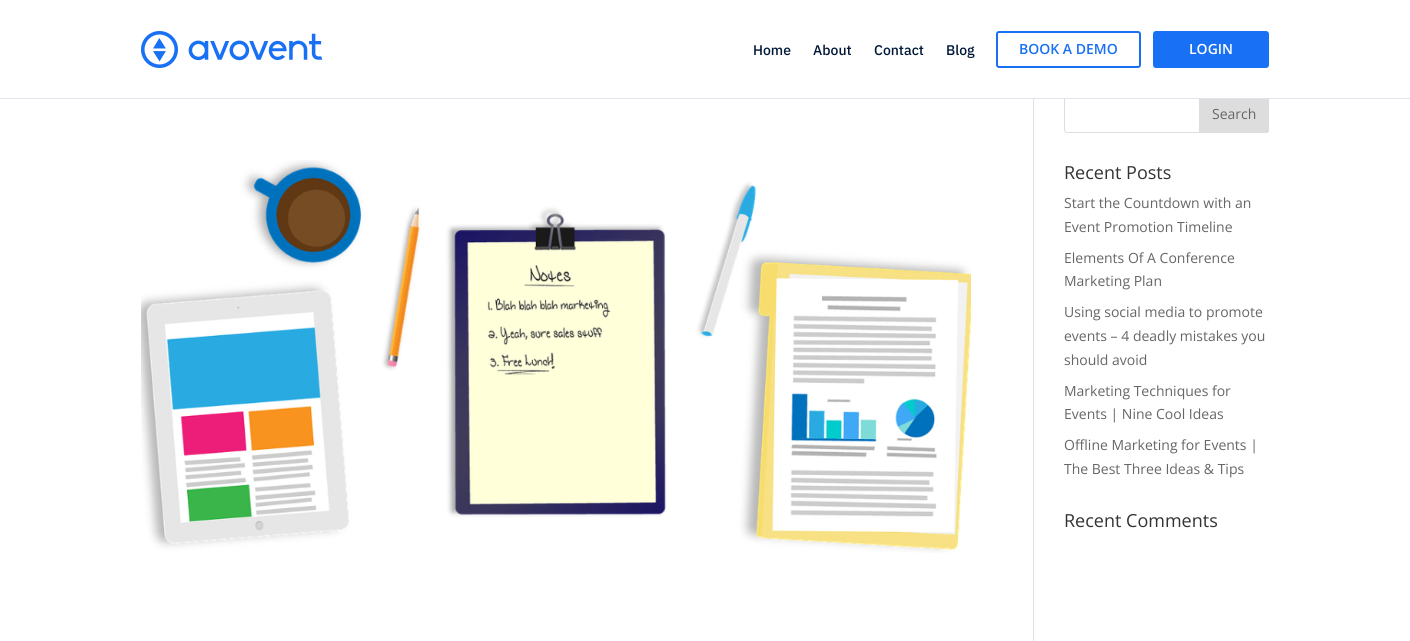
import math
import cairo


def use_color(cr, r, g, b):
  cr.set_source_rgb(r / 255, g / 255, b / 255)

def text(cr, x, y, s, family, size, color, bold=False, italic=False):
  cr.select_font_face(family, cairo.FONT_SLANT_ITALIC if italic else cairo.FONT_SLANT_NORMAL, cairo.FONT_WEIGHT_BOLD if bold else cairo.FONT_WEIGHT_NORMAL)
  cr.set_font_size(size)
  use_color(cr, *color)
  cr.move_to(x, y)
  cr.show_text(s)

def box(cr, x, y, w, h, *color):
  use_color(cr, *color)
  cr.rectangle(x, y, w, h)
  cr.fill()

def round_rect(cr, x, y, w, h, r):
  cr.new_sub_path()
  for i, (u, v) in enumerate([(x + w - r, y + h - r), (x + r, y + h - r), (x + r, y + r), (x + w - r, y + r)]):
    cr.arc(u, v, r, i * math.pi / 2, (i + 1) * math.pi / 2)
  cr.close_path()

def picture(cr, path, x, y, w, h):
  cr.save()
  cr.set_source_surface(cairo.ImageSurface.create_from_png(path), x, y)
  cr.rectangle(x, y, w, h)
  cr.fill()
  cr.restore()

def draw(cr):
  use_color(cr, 255, 255, 255)
  cr.paint()
  round_rect(cr, 1064.5, 93.5, 204, 39, 2.5)
  use_color(cr, 221, 221, 221)
  cr.set_line_width(1)
  cr.stroke()
  cr.new_path()
  cr.move_to(1199.5, 93.5)
  cr.line_to(1266, 93.5)
  cr.curve_to(1267.5, 93.5, 1268.5, 94.5, 1268.5, 96)
  cr.line_to(1268.5, 130)
  cr.curve_to(1268.5, 131.5, 1267.5, 132.5, 1266, 132.5)
  cr.line_to(1199.5, 132.5)
  cr.close_path()
  cr.fill_preserve()
  cr.stroke()
  box(cr, 1064, 93, 205, 5, 255, 255, 255)
  box(cr, 0, 98, 1410, 1, 225, 228, 236)
  picture(cr, "img_01.png", 141, 31, 182, 37)
  round_rect(cr, 997, 32, 143, 35, 2)
  use_color(cr, 24, 112, 244)
  cr.set_line_width(2)
  cr.stroke()
  round_rect(cr, 1153, 31, 116, 37, 3)
  cr.fill()
  box(cr, 1033, 99, 1, 542, 226, 226, 226)
  picture(cr, "img_02.png", 141, 160, 830, 393)
  text(cr, 753, 55, "Home", "IBM Plex Sans Medium", 14, (0, 23, 55))
  text(cr, 813, 55, "About", "IBM Plex Sans Medium", 14, (0, 23, 55))
  text(cr, 874, 55, "Contact", "IBM Plex Sans Medium", 14, (0, 23, 55))
  text(cr, 946, 55, "Blog", "IBM Plex Sans Medium", 14, (0, 23, 55))
  text(cr, 1019, 54, "BOOK A DEMO", "Open Sans SemiBold", 14, (24, 112, 244))
  text(cr, 1189, 54, "LOGIN", "Open Sans SemiBold", 14, (255, 255, 255))
  text(cr, 1212, 119, "Search", "Open Sans", 14, (102, 102, 102))
  text(cr, 1064, 179, "Recent Posts", "Open Sans", 18, (51, 51, 51))
  text(cr, 1064, 208, "Start the Countdown with an", "Open Sans", 14, (102, 102, 102))
  text(cr, 1064, 232, "Event Promotion Timeline", "Open Sans", 14, (102, 102, 102))
  text(cr, 1064, 263, "Elements Of A Conference", "Open Sans", 14, (102, 102, 102))
  text(cr, 1064, 286, "Marketing Plan", "Open Sans", 14, (102, 102, 102))
  text(cr, 1064, 317, "Using social media to promote", "Open Sans", 14, (102, 102, 102))
  text(cr, 1064, 341, "events – 4 deadly mistakes you", "Open Sans", 14, (102, 102, 102))
  text(cr, 1064, 365, "should avoid", "Open Sans", 14, (102, 102, 102))
  text(cr, 1064, 396, "Marketing Techniques for", "Open Sans", 14, (102, 102, 102))
  text(cr, 1064, 419, "Events | Nine Cool Ideas", "Open Sans", 14, (102, 102, 102))
  text(cr, 1064, 450, "Offline Marketing for Events |", "Open Sans", 14, (102, 102, 102))
  text(cr, 1064, 474, "The Best Three Ideas & Tips", "Open Sans", 14, (102, 102, 102))
  text(cr, 1064, 527, "Recent Comments", "Open Sans", 18, (51, 51, 51))


surface = cairo.ImageSurface(cairo.FORMAT_RGB24, 1410, 641)
cr = cairo.Context(surface)
options = cairo.FontOptions()
options.set_hint_metrics(cairo.HINT_METRICS_OFF)
options.set_hint_style(cairo.HINT_STYLE_NONE)
cr.set_font_options(options)
cr.set_miter_limit(4)
draw(cr)
surface.write_to_png("out.png")
